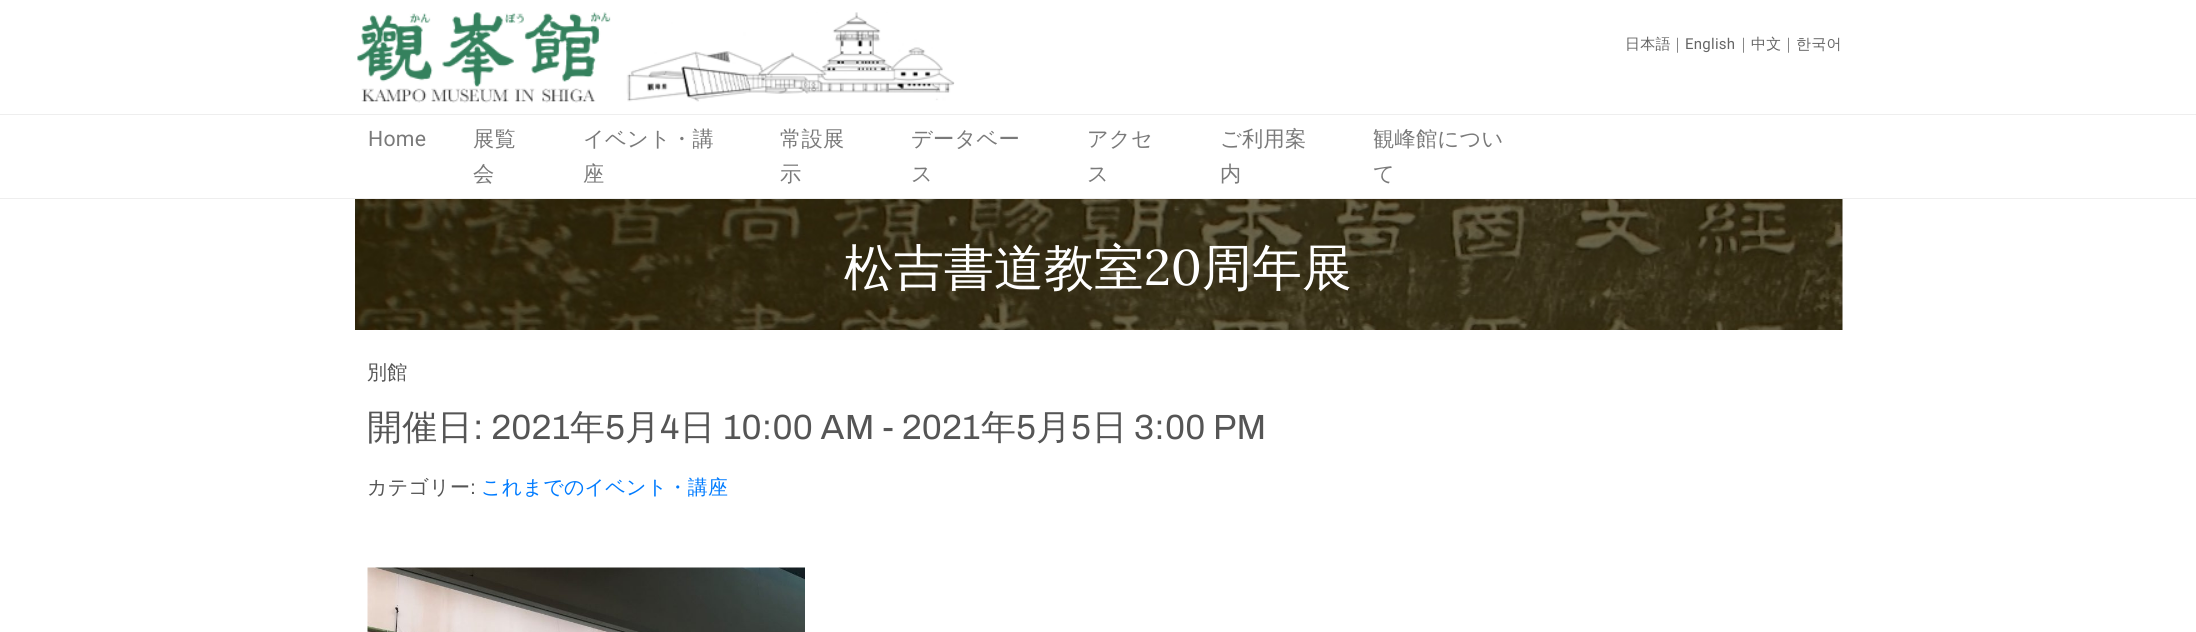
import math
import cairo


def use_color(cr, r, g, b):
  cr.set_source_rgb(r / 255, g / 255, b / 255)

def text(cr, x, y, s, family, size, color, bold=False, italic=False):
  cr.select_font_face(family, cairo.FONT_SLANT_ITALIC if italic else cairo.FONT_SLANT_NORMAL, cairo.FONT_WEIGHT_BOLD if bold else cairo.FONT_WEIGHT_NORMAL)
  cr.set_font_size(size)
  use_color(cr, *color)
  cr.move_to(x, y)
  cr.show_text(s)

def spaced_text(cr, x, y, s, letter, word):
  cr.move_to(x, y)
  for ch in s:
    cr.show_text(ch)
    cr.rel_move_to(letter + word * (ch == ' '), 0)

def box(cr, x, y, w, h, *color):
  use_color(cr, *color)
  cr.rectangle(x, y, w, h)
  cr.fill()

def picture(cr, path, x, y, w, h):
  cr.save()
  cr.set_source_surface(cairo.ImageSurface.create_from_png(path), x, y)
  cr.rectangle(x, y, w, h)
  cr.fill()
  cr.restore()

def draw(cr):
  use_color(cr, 255, 255, 255)
  cr.paint()
  box(cr, 0, 114, 2196, 1, 238, 238, 238)
  picture(cr, "img_01.png", 357, 12, 598, 91)
  box(cr, 0, 198, 2196, 1, 238, 238, 238)
  picture(cr, "img_02.png", 355, 199, 1488, 131)
  picture(cr, "img_03.png", 367, 567, 438, 65)
  cr.select_font_face("WenQuanYi Zen Hei Medium")
  cr.set_font_size(15)
  use_color(cr, 102, 102, 102)
  spaced_text(cr, 1625, 49, "日本語", 0.25, 0)
  use_color(cr, 122, 122, 122)
  spaced_text(cr, 1670, 49, "｜", 0.25, 0)
  cr.select_font_face("Roboto")
  use_color(cr, 102, 102, 102)
  spaced_text(cr, 1685, 49, "English", 0.25, 0)
  cr.select_font_face("WenQuanYi Zen Hei Medium")
  use_color(cr, 122, 122, 122)
  spaced_text(cr, 1736, 49, "｜", 0.25, 0)
  use_color(cr, 102, 102, 102)
  spaced_text(cr, 1751, 49, "中文", 0.25, 0)
  use_color(cr, 122, 122, 122)
  spaced_text(cr, 1781, 49, "｜", 0.25, 0)
  use_color(cr, 102, 102, 102)
  spaced_text(cr, 1796, 49, "한국어", 0.25, 0)
  cr.select_font_face("Roboto")
  cr.set_font_size(21.25)
  use_color(cr, 122, 122, 122)
  spaced_text(cr, 368, 146, "Home", 0.25, 0)
  cr.select_font_face("WenQuanYi Zen Hei Medium")
  spaced_text(cr, 473, 146, "展覧", 0.25, 0)
  spaced_text(cr, 473, 181, "会", 0.25, 0)
  spaced_text(cr, 583, 146, "イベント・講", 0.25, 0)
  spaced_text(cr, 583, 181, "座", 0.25, 0)
  spaced_text(cr, 780, 146, "常設展", 0.25, 0)
  spaced_text(cr, 780, 181, "示", 0.25, 0)
  spaced_text(cr, 911, 146, "データベー", 0.25, 0)
  spaced_text(cr, 911, 181, "ス", 0.25, 0)
  spaced_text(cr, 1087, 146, "アクセ", 0.25, 0)
  spaced_text(cr, 1087, 181, "ス", 0.25, 0)
  spaced_text(cr, 1220, 146, "ご利用案", 0.25, 0)
  spaced_text(cr, 1220, 181, "内", 0.25, 0)
  spaced_text(cr, 1373, 146, "観峰館につい", 0.25, 0)
  spaced_text(cr, 1373, 181, "て", 0.25, 0)
  text(cr, 844, 285, "松吉書道教室", "WenQuanYi Zen Hei Medium", 50, (255, 255, 255))
  text(cr, 1144, 285, "20", "Lora", 50, (255, 255, 255))
  text(cr, 1202, 285, "周年展", "WenQuanYi Zen Hei Medium", 50, (255, 255, 255))
  cr.set_font_size(20)
  use_color(cr, 85, 85, 85)
  spaced_text(cr, 367, 379, "別館", 0.25, 0)
  cr.set_font_size(35)
  spaced_text(cr, 367, 439, "開催日", 0.25, 0)
  cr.select_font_face("Archivo")
  spaced_text(cr, 473, 439, ": 2021", 0.25, 0)
  cr.select_font_face("WenQuanYi Zen Hei Medium")
  spaced_text(cr, 570, 439, "年", 0.25, 0)
  cr.select_font_face("Archivo")
  spaced_text(cr, 605, 439, "5", 0.25, 0)
  cr.select_font_face("WenQuanYi Zen Hei Medium")
  spaced_text(cr, 625, 439, "月", 0.25, 0)
  cr.select_font_face("Archivo")
  spaced_text(cr, 660, 439, "4", 0.25, 0)
  cr.select_font_face("WenQuanYi Zen Hei Medium")
  spaced_text(cr, 680, 439, "日", 0.25, 0)
  cr.select_font_face("Archivo")
  spaced_text(cr, 723, 439, "10:00 AM - 2021", 0.25, 0)
  cr.select_font_face("WenQuanYi Zen Hei Medium")
  spaced_text(cr, 981, 439, "年", 0.25, 0)
  cr.select_font_face("Archivo")
  spaced_text(cr, 1016, 439, "5", 0.25, 0)
  cr.select_font_face("WenQuanYi Zen Hei Medium")
  spaced_text(cr, 1036, 439, "月", 0.25, 0)
  cr.select_font_face("Archivo")
  spaced_text(cr, 1071, 439, "5", 0.25, 0)
  cr.select_font_face("WenQuanYi Zen Hei Medium")
  spaced_text(cr, 1092, 439, "日", 0.25, 0)
  cr.select_font_face("Archivo")
  spaced_text(cr, 1134, 439, "3:00 PM", 0.25, 0)
  cr.select_font_face("WenQuanYi Zen Hei Medium")
  cr.set_font_size(20)
  spaced_text(cr, 367, 494, "カテゴリー", 0.25, 0)
  cr.select_font_face("Archivo")
  spaced_text(cr, 470, 494, ":", 0.25, 0)
  cr.select_font_face("WenQuanYi Zen Hei Medium")
  use_color(cr, 0, 123, 255)
  spaced_text(cr, 481, 494, "これまでのイベント・講座", 0.25, 0)


surface = cairo.ImageSurface(cairo.FORMAT_RGB24, 2196, 632)
cr = cairo.Context(surface)
options = cairo.FontOptions()
options.set_hint_metrics(cairo.HINT_METRICS_OFF)
options.set_hint_style(cairo.HINT_STYLE_NONE)
cr.set_font_options(options)
cr.set_miter_limit(4)
draw(cr)
surface.write_to_png("out.png")
